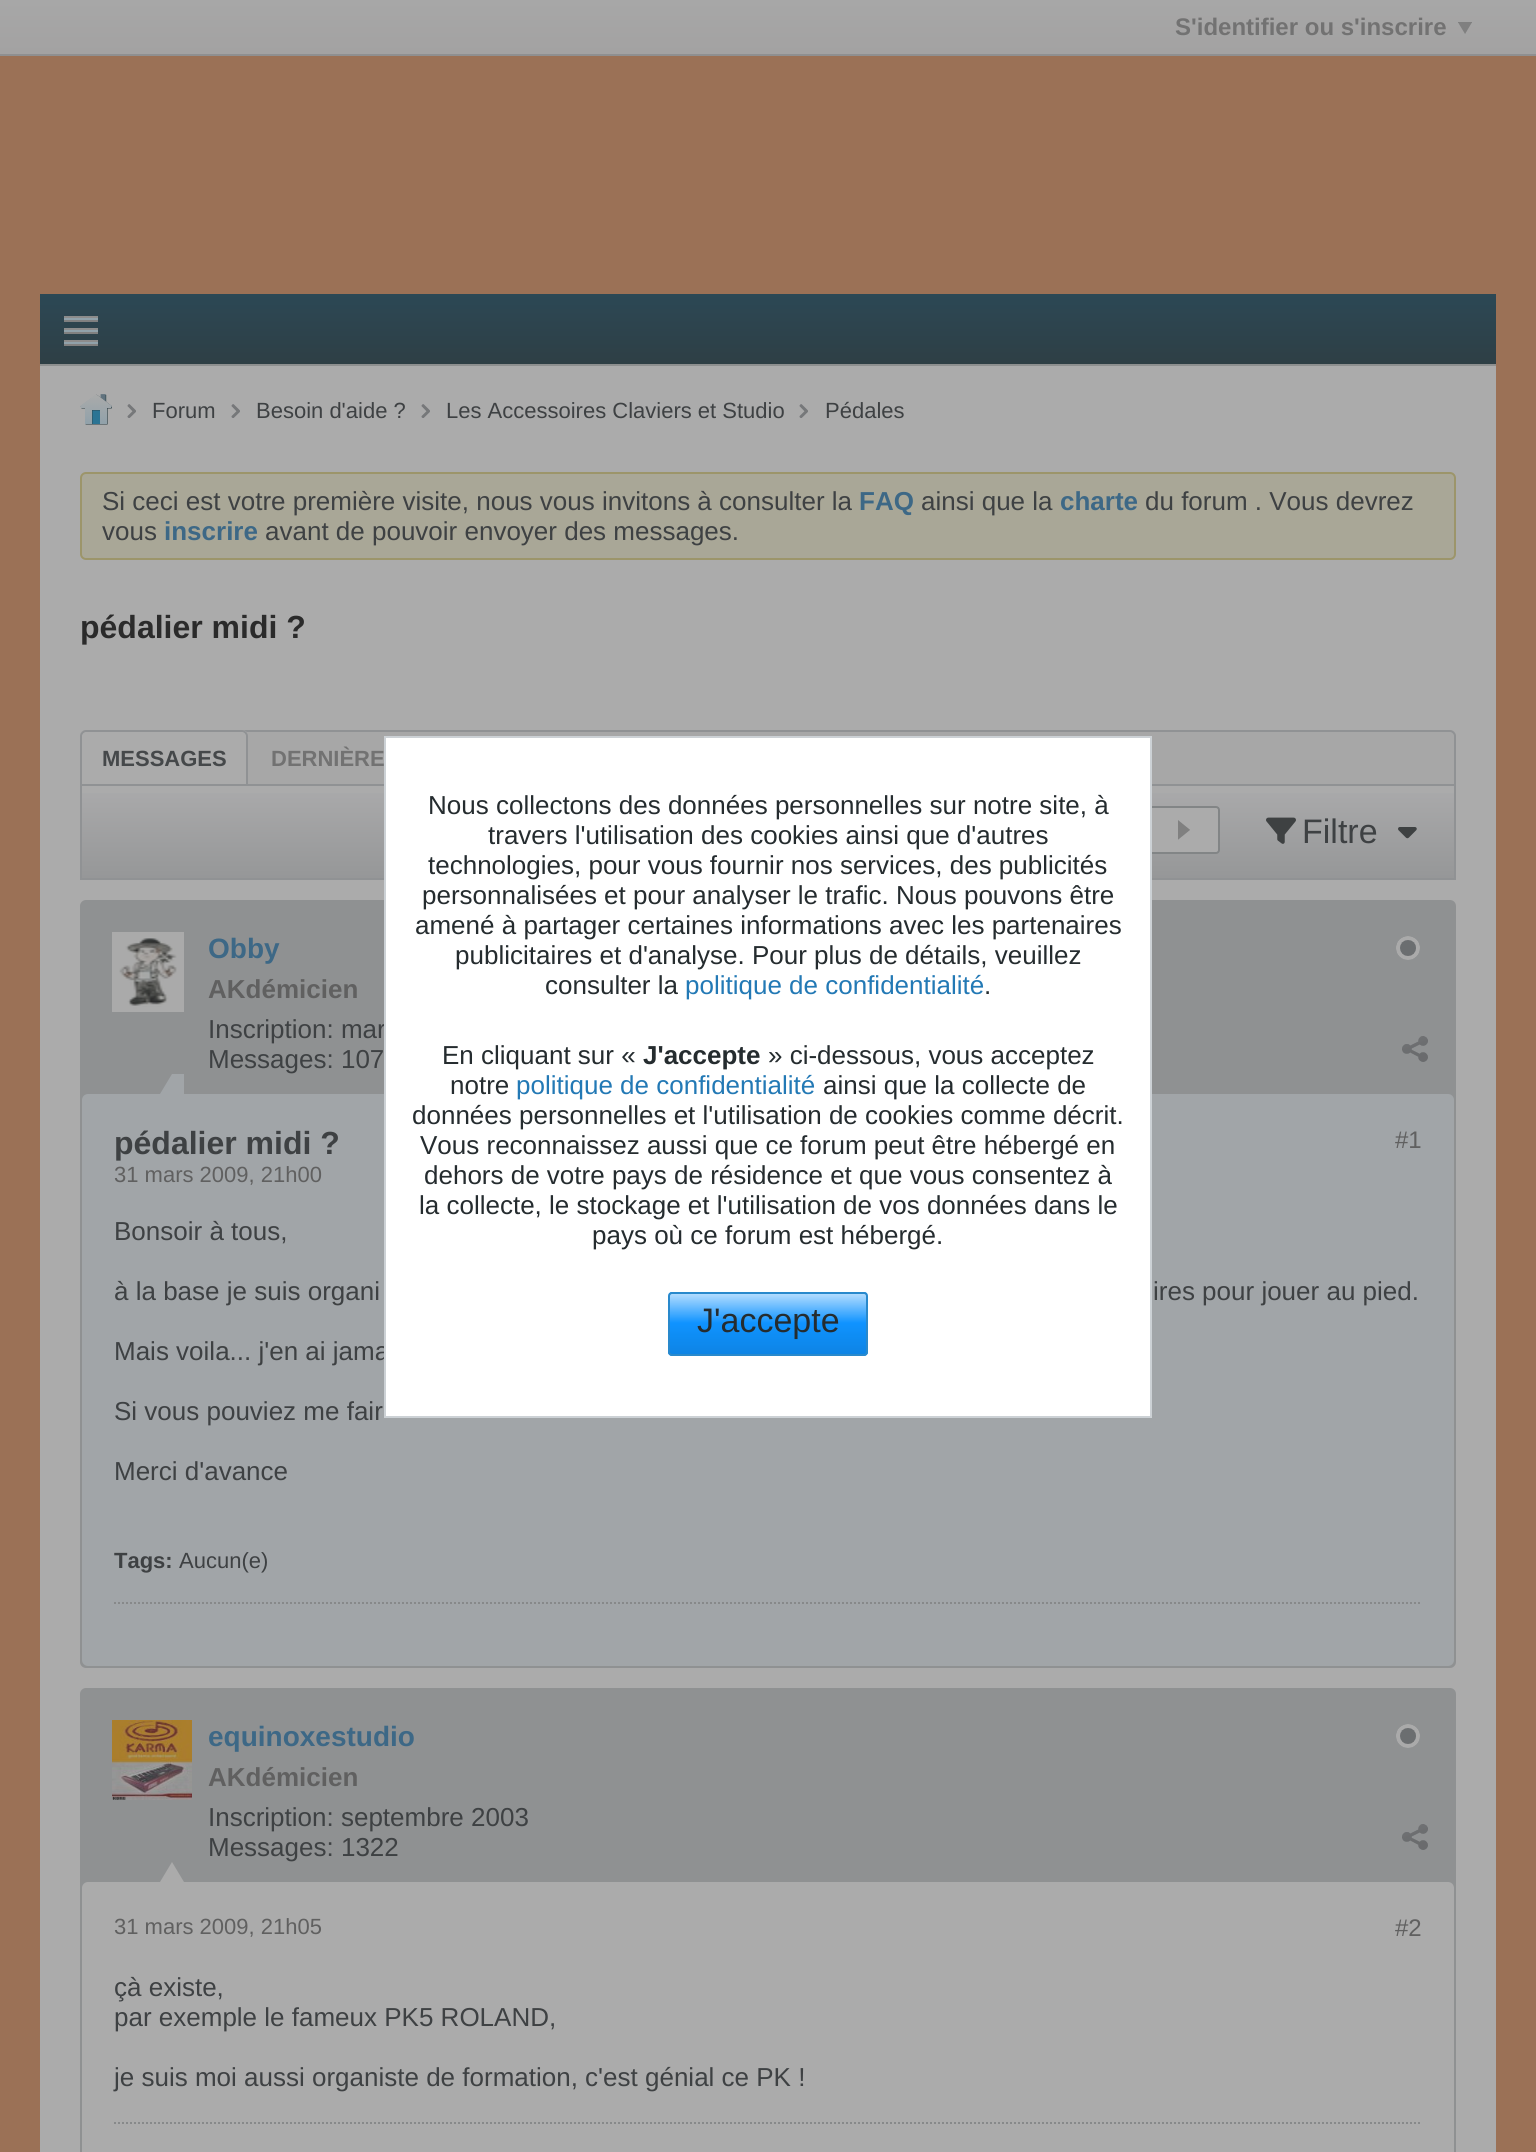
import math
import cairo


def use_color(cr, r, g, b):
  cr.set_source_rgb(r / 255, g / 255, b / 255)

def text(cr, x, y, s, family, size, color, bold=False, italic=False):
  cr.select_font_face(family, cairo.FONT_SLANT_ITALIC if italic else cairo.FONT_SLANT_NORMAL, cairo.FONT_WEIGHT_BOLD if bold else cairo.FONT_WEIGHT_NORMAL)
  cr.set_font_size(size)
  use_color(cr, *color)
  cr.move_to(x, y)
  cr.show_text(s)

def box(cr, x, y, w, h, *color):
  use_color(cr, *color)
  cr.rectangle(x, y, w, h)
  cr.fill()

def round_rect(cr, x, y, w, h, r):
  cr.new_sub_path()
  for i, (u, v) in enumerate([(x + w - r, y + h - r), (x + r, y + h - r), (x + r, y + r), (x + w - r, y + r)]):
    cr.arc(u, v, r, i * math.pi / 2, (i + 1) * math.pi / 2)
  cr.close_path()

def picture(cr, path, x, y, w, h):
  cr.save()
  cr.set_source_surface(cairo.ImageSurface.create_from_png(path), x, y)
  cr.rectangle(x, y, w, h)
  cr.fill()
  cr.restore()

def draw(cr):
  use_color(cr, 155, 113, 86)
  cr.paint()
  gradient = cairo.LinearGradient(768, 0, 768, 54)
  gradient.add_color_stop_rgba(0, 0.655, 0.655, 0.655, 1)
  gradient.add_color_stop_rgba(1, 0.639, 0.635, 0.635, 1)
  cr.set_source(gradient)
  cr.rectangle(0, 0, 1536, 54)
  cr.fill()
  box(cr, 0, 54, 1536, 2, 143, 143, 144)
  picture(cr, "img_01.png", 1458, 22, 14, 12)
  gradient = cairo.LinearGradient(768, 294, 768, 364)
  gradient.add_color_stop_rgba(0, 0.173, 0.282, 0.333, 1)
  gradient.add_color_stop_rgba(1, 0.18, 0.247, 0.271, 1)
  cr.set_source(gradient)
  cr.rectangle(40, 294, 1456, 70)
  cr.fill()
  box(cr, 40, 364, 1456, 2, 141, 143, 143)
  picture(cr, "img_02.png", 64, 316, 34, 30)
  box(cr, 40, 366, 1456, 1786, 171, 171, 171)
  picture(cr, "img_03.png", 80, 394, 32, 31)
  picture(cr, "img_04.png", 127, 404, 9, 14)
  picture(cr, "img_04.png", 231, 404, 9, 14)
  picture(cr, "img_04.png", 421, 404, 9, 14)
  picture(cr, "img_04.png", 799, 404, 9, 14)
  use_color(cr, 169, 167, 151)
  round_rect(cr, 81, 473, 1374, 86, 5)
  cr.fill_preserve()
  use_color(cr, 156, 149, 106)
  cr.stroke()
  use_color(cr, 167, 167, 167)
  cr.new_path()
  cr.move_to(86, 730)
  cr.line_to(1450, 730)
  cr.curve_to(1453.5, 730, 1456, 732.5, 1456, 736)
  cr.line_to(1456, 784)
  cr.line_to(80, 784)
  cr.line_to(80, 736)
  cr.curve_to(80, 732.5, 82.5, 730, 86, 730)
  cr.close_path()
  cr.fill()
  use_color(cr, 144, 146, 148)
  cr.set_fill_rule(cairo.FILL_RULE_EVEN_ODD)
  cr.new_path()
  cr.move_to(86, 730)
  cr.line_to(1450, 730)
  cr.curve_to(1453, 730, 1456, 733, 1456, 736)
  cr.line_to(1456, 784)
  cr.line_to(80, 784)
  cr.line_to(80, 736)
  cr.curve_to(80, 733, 83, 730, 86, 730)
  cr.close_path()
  cr.move_to(86, 732)
  cr.line_to(1450, 732)
  cr.curve_to(1452, 732, 1454, 734, 1454, 736)
  cr.line_to(1454, 784)
  cr.line_to(82, 784)
  cr.line_to(82, 736)
  cr.curve_to(82, 734, 84, 732, 86, 732)
  cr.close_path()
  cr.fill()
  use_color(cr, 171, 171, 171)
  cr.new_path()
  cr.move_to(86, 730)
  cr.line_to(242, 730)
  cr.curve_to(245.5, 730, 248, 732.5, 248, 736)
  cr.line_to(248, 784)
  cr.line_to(80, 784)
  cr.line_to(80, 736)
  cr.curve_to(80, 732.5, 82.5, 730, 86, 730)
  cr.close_path()
  cr.fill()
  use_color(cr, 144, 146, 148)
  cr.new_path()
  cr.move_to(86, 730)
  cr.line_to(242, 730)
  cr.curve_to(245, 730, 248, 733, 248, 736)
  cr.line_to(248, 784)
  cr.line_to(80, 784)
  cr.line_to(80, 736)
  cr.curve_to(80, 733, 83, 730, 86, 730)
  cr.close_path()
  cr.move_to(86, 732)
  cr.line_to(242, 732)
  cr.curve_to(244, 732, 246, 734, 246, 736)
  cr.line_to(246, 784)
  cr.line_to(82, 784)
  cr.line_to(82, 736)
  cr.curve_to(82, 734, 84, 732, 86, 732)
  cr.close_path()
  cr.fill()
  gradient = cairo.LinearGradient(768, 786, 768, 878)
  gradient.add_color_stop_rgba(0, 0.667, 0.667, 0.671, 1)
  gradient.add_color_stop_rgba(1, 0.588, 0.592, 0.596, 1)
  cr.set_source(gradient)
  cr.rectangle(82, 793, 1372, 85)
  cr.fill()
  cr.rectangle(81, 785, 1374, 94)
  use_color(cr, 144, 146, 148)
  cr.stroke()
  use_color(cr, 171, 171, 171)
  round_rect(cr, 1053, 807, 166, 46, 3)
  cr.fill_preserve()
  use_color(cr, 130, 133, 134)
  cr.stroke()
  picture(cr, "img_05.png", 1178, 820, 12, 20)
  picture(cr, "img_06.png", 1266, 817, 30, 27)
  picture(cr, "img_07.png", 1398, 827, 19, 12)
  use_color(cr, 143, 145, 146)
  round_rect(cr, 81, 901, 1374, 766, 5)
  cr.fill_preserve()
  cr.stroke()
  picture(cr, "img_08.png", 112, 932, 72, 80)
  picture(cr, "img_09.png", 1396, 936, 24, 24)
  picture(cr, "img_10.png", 1402, 1036, 26, 26)
  use_color(cr, 161, 165, 168)
  round_rect(cr, 82, 1094, 1372, 572, 6)
  cr.fill()
  box(cr, 172, 1074, 12, 20, 161, 165, 168)
  cr.set_fill_rule(cairo.FILL_RULE_WINDING)
  cr.new_path()
  cr.move_to(184, 1094)
  cr.line_to(160, 1094)
  cr.line_to(172, 1074)
  cr.close_path()
  cr.fill()
  cr.new_path()
  cr.move_to(114, 1603)
  cr.line_to(1422, 1603)
  use_color(cr, 135, 137, 138)
  cr.set_dash([2, 2])
  cr.stroke()
  use_color(cr, 143, 145, 146)
  round_rect(cr, 81, 1689, 1374, 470, 5)
  cr.fill_preserve()
  cr.set_dash([])
  cr.stroke()
  picture(cr, "img_11.png", 112, 1720, 80, 80)
  picture(cr, "img_09.png", 1396, 1724, 24, 24)
  picture(cr, "img_10.png", 1402, 1824, 26, 26)
  use_color(cr, 171, 171, 171)
  round_rect(cr, 82, 1882, 1372, 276, 6)
  cr.fill()
  cr.new_path()
  cr.move_to(184, 1882)
  cr.line_to(160, 1882)
  cr.line_to(172, 1862)
  cr.close_path()
  cr.fill()
  cr.new_path()
  cr.move_to(114, 2123)
  cr.line_to(1422, 2123)
  use_color(cr, 135, 137, 138)
  cr.set_dash([2, 2])
  cr.stroke()
  text(cr, 1175, 35, "S'identifier ou s'inscrire", "Liberation Sans", 24, (114, 114, 114), bold=True)
  text(cr, 152, 418, "Forum", "Liberation Sans", 22, (62, 65, 67))
  text(cr, 256, 418, "Besoin d'aide ?", "Liberation Sans", 22, (62, 65, 67))
  text(cr, 446, 418, "Les Accessoires Claviers et Studio", "Liberation Sans", 22, (62, 65, 67))
  text(cr, 825, 418, "Pédales", "Liberation Sans", 22, (62, 65, 67))
  text(cr, 102, 510, "Si ceci est votre première visite, nous vous invitons à consulter la", "Liberation Sans", 26, (62, 65, 67))
  text(cr, 859, 510, "FAQ", "Liberation Sans", 26, (61, 104, 134), bold=True)
  text(cr, 921, 510, "ainsi que la", "Liberation Sans", 26, (62, 65, 67))
  text(cr, 1060, 510, "charte", "Liberation Sans", 26, (61, 104, 134), bold=True)
  text(cr, 1145, 510, "du forum . Vous devrez", "Liberation Sans", 26, (62, 65, 67))
  text(cr, 102, 540, "vous", "Liberation Sans", 26, (62, 65, 67))
  text(cr, 164, 540, "inscrire", "Liberation Sans", 26, (61, 104, 134), bold=True)
  text(cr, 265, 540, "avant de pouvoir envoyer des messages.", "Liberation Sans", 26, (62, 65, 67))
  text(cr, 80, 638, "pédalier midi ?", "Liberation Sans", 32, (43, 43, 43), bold=True)
  text(cr, 102, 766, "MESSAGES", "Liberation Sans", 22, (69, 72, 74), bold=True)
  text(cr, 271, 766, "DERNIÈRE", "Liberation Sans", 22, (114, 114, 114), bold=True)
  text(cr, 1302, 843, "Filtre", "Liberation Sans", 34, (62, 65, 67))
  text(cr, 208, 958, "Obby", "Liberation Sans", 28, (61, 104, 134), bold=True)
  text(cr, 208, 998, "AKdémicien", "Liberation Sans", 26, (96, 96, 96), bold=True)
  text(cr, 208, 1038, "Inscription: mar", "Liberation Sans", 26, (62, 65, 67))
  text(cr, 208, 1068, "Messages: 107", "Liberation Sans", 26, (62, 65, 67))
  text(cr, 114, 1154, "pédalier midi ?", "Liberation Sans", 32, (62, 65, 67), bold=True)
  text(cr, 114, 1182, "31 mars 2009, 21h00", "Liberation Sans", 22, (96, 96, 96))
  text(cr, 1395, 1148, "#1", "Liberation Sans", 24, (96, 96, 96))
  text(cr, 114, 1240, "Bonsoir à tous,", "Liberation Sans", 26, (62, 65, 67))
  text(cr, 114, 1300, "à la base je suis organi", "Liberation Sans", 26, (62, 65, 67))
  text(cr, 1153, 1300, "ires pour jouer au pied.", "Liberation Sans", 26, (62, 65, 67))
  text(cr, 114, 1360, "Mais voila... j'en ai jama", "Liberation Sans", 26, (62, 65, 67))
  text(cr, 114, 1420, "Si vous pouviez me fair", "Liberation Sans", 26, (62, 65, 67))
  text(cr, 114, 1480, "Merci d'avance", "Liberation Sans", 26, (62, 65, 67))
  text(cr, 114, 1568, "Tags:", "Liberation Sans", 22, (62, 65, 67), bold=True)
  text(cr, 179, 1568, "Aucun(e)", "Liberation Sans", 22, (62, 65, 67))
  text(cr, 208, 1746, "equinoxestudio", "Liberation Sans", 28, (61, 104, 134), bold=True)
  text(cr, 208, 1786, "AKdémicien", "Liberation Sans", 26, (96, 96, 96), bold=True)
  text(cr, 208, 1826, "Inscription: septembre 2003", "Liberation Sans", 26, (62, 65, 67))
  text(cr, 208, 1856, "Messages: 1322", "Liberation Sans", 26, (62, 65, 67))
  text(cr, 114, 1934, "31 mars 2009, 21h05", "Liberation Sans", 22, (96, 96, 96))
  text(cr, 1395, 1936, "#2", "Liberation Sans", 24, (96, 96, 96))
  text(cr, 114, 1996, "çà existe,", "Liberation Sans", 26, (62, 65, 67))
  text(cr, 114, 2026, "par exemple le fameux PK5 ROLAND,", "Liberation Sans", 26, (62, 65, 67))
  text(cr, 114, 2086, "je suis moi aussi organiste de formation, c'est génial ce PK !", "Liberation Sans", 26, (62, 65, 67))
  use_color(cr, 255, 255, 255)
  cr.rectangle(385, 737, 766, 680)
  cr.fill_preserve()
  use_color(cr, 204, 209, 213)
  cr.set_dash([])
  cr.stroke()
  text(cr, 428, 814, "Nous collectons des données personnelles sur notre site, à", "Liberation Sans", 26, (37, 44, 47))
  text(cr, 488, 844, "travers l'utilisation des cookies ainsi que d'autres", "Liberation Sans", 26, (37, 44, 47))
  text(cr, 428, 874, "technologies, pour vous fournir nos services, des publicités", "Liberation Sans", 26, (37, 44, 47))
  text(cr, 422, 904, "personnalisées et pour analyser le trafic. Nous pouvons être", "Liberation Sans", 26, (37, 44, 47))
  text(cr, 415, 934, "amené à partager certaines informations avec les partenaires", "Liberation Sans", 26, (37, 44, 47))
  text(cr, 455, 964, "publicitaires et d'analyse. Pour plus de détails, veuillez", "Liberation Sans", 26, (37, 44, 47))
  text(cr, 545, 994, "consulter la", "Liberation Sans", 26, (37, 44, 47))
  text(cr, 685, 994, "politique de confidentialité", "Liberation Sans", 26, (35, 121, 181))
  text(cr, 984, 994, ".", "Liberation Sans", 26, (37, 44, 47))
  text(cr, 442, 1064, "En cliquant sur «", "Liberation Sans", 26, (37, 44, 47))
  text(cr, 643, 1064, "J'accepte", "Liberation Sans", 26, (37, 44, 47), bold=True)
  text(cr, 768, 1064, "» ci-dessous, vous acceptez", "Liberation Sans", 26, (37, 44, 47))
  text(cr, 450, 1094, "notre", "Liberation Sans", 26, (37, 44, 47))
  text(cr, 516, 1094, "politique de confidentialité", "Liberation Sans", 26, (35, 121, 181))
  text(cr, 823, 1094, "ainsi que la collecte de", "Liberation Sans", 26, (37, 44, 47))
  text(cr, 412, 1124, "données personnelles et l'utilisation de cookies comme décrit.", "Liberation Sans", 26, (37, 44, 47))
  text(cr, 420, 1154, "Vous reconnaissez aussi que ce forum peut être hébergé en", "Liberation Sans", 26, (37, 44, 47))
  text(cr, 424, 1184, "dehors de votre pays de résidence et que vous consentez à", "Liberation Sans", 26, (37, 44, 47))
  text(cr, 419, 1214, "la collecte, le stockage et l'utilisation de vos données dans le", "Liberation Sans", 26, (37, 44, 47))
  text(cr, 592, 1244, "pays où ce forum est hébergé.", "Liberation Sans", 26, (37, 44, 47))
  use_color(cr, 15, 147, 255)
  round_rect(cr, 668, 1292, 200, 64, 4)
  cr.fill()
  gradient = cairo.LinearGradient(768, 1353, 768, 1293)
  gradient.add_color_stop_rgba(0, 0, 0, 0, 0.1)
  gradient.add_color_stop_rgba(0.5, 0, 0, 0, 0)
  gradient.add_color_stop_rgba(0.5, 1, 1, 1, 0)
  gradient.add_color_stop_rgba(1, 1, 1, 1, 0.7)
  cr.set_source(gradient)
  cr.rectangle(668, 1294, 200, 60)
  cr.fill()
  round_rect(cr, 669, 1293, 198, 62, 3)
  use_color(cr, 41, 137, 204)
  cr.stroke()
  text(cr, 697, 1332, "J'accepte", "Liberation Sans", 34, (37, 44, 47))


surface = cairo.ImageSurface(cairo.FORMAT_RGB24, 1536, 2152)
cr = cairo.Context(surface)
options = cairo.FontOptions()
options.set_hint_metrics(cairo.HINT_METRICS_OFF)
options.set_hint_style(cairo.HINT_STYLE_NONE)
cr.set_font_options(options)
cr.set_miter_limit(4)
draw(cr)
surface.write_to_png("out.png")
